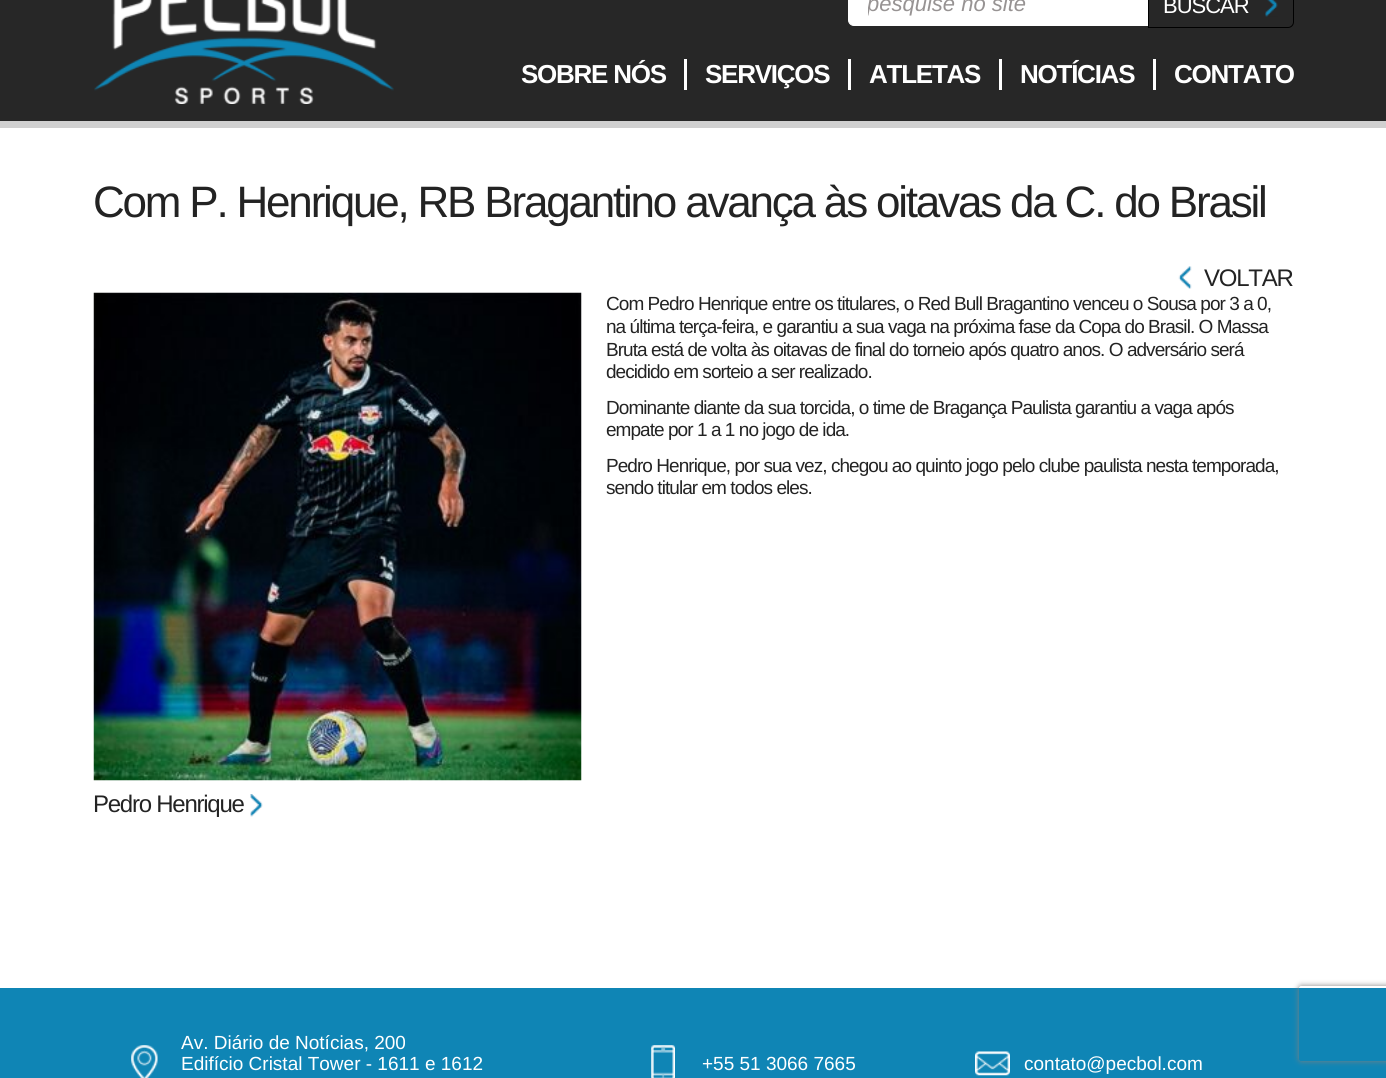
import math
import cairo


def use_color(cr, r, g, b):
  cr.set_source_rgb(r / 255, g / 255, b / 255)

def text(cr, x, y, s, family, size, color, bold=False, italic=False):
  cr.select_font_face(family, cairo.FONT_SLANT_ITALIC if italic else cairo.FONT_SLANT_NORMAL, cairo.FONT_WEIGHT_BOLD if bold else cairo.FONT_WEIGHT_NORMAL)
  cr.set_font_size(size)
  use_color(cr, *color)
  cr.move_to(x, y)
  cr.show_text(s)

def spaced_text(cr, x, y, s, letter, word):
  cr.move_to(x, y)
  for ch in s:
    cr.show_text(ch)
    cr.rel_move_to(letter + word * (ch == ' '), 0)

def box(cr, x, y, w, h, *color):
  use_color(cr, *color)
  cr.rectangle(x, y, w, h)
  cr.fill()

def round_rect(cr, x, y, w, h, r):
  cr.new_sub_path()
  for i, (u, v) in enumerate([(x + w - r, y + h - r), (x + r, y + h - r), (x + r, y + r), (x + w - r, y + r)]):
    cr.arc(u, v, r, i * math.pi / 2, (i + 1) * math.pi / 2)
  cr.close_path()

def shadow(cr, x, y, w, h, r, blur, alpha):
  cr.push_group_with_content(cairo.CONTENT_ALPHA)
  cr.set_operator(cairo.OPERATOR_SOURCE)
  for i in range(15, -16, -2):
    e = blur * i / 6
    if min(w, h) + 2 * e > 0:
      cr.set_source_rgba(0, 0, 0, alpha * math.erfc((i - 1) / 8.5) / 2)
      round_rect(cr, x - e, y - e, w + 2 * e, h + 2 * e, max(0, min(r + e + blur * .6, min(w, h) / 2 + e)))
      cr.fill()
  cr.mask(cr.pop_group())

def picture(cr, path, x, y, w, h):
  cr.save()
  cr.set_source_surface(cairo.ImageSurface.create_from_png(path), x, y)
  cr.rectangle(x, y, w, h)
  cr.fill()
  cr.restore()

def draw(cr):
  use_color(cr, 255, 255, 255)
  cr.paint()
  box(cr, 0, 0, 1386, 121, 39, 39, 39)
  box(cr, 0, 121, 1386, 7, 208, 208, 208)
  picture(cr, "img_01.png", 94, 0, 300, 104)
  use_color(cr, 255, 255, 255)
  cr.new_path()
  cr.move_to(854, -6.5)
  cr.line_to(1147.5, -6.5)
  cr.line_to(1147.5, 25.5)
  cr.line_to(854, 25.5)
  cr.curve_to(851, 25.5, 848.5, 23, 848.5, 20)
  cr.line_to(848.5, -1)
  cr.curve_to(848.5, -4, 851, -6.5, 854, -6.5)
  cr.close_path()
  cr.fill_preserve()
  cr.set_line_width(1)
  cr.stroke()
  picture(cr, "img_02.png", 1265, 0, 13, 17)
  cr.new_path()
  cr.move_to(1148.5, -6.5)
  cr.line_to(1288, -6.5)
  cr.curve_to(1291, -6.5, 1293.5, -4, 1293.5, -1)
  cr.line_to(1293.5, 22)
  cr.curve_to(1293.5, 25, 1291, 27.5, 1288, 27.5)
  cr.line_to(1148.5, 27.5)
  cr.close_path()
  use_color(cr, 0, 0, 0)
  cr.stroke()
  box(cr, 684, 59, 3, 31, 255, 255, 255)
  box(cr, 848, 59, 3, 31, 255, 255, 255)
  box(cr, 999, 59, 3, 31, 255, 255, 255)
  box(cr, 1153, 59, 3, 31, 255, 255, 255)
  picture(cr, "img_03.png", 1178, 266, 14, 23)
  picture(cr, "img_04.png", 93, 292, 489, 489)
  picture(cr, "img_05.png", 250, 794, 13, 23)
  box(cr, 0, 988, 1386, 90, 15, 133, 181)
  picture(cr, "img_06.png", 131, 1045, 27, 33)
  picture(cr, "img_07.png", 651, 1045, 24, 33)
  picture(cr, "img_08.png", 975, 1051, 35, 25)
  cr.save()
  cr.set_fill_rule(cairo.FILL_RULE_EVEN_ODD)
  cr.new_path()
  cr.move_to(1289, 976)
  cr.line_to(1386, 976)
  cr.line_to(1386, 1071)
  cr.line_to(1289, 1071)
  cr.close_path()
  cr.move_to(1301.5, 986)
  cr.line_to(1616.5, 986)
  cr.curve_to(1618, 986, 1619, 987, 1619, 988.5)
  cr.line_to(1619, 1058.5)
  cr.curve_to(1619, 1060, 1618, 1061, 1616.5, 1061)
  cr.line_to(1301.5, 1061)
  cr.curve_to(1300, 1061, 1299, 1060, 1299, 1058.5)
  cr.line_to(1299, 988.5)
  cr.curve_to(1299, 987, 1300, 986, 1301.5, 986)
  cr.close_path()
  cr.clip()
  use_color(cr, 128, 128, 128)
  shadow(cr, 1299, 986, 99, 75, 2.5, 3, 1)
  cr.restore()
  cr.save()
  cr.rectangle(868, 0, 240, 18)
  cr.clip()
  text(cr, 867, 11, "pesquise no site", "Liberation Sans", 22, (151, 147, 147), italic=True)
  cr.restore()
  cr.select_font_face("Liberation Sans")
  cr.set_font_size(22)
  use_color(cr, 255, 255, 255)
  spaced_text(cr, 1163, 13, "BUSCAR", -1, 0)
  cr.select_font_face("Liberation Sans", cairo.FONT_SLANT_NORMAL, cairo.FONT_WEIGHT_BOLD)
  cr.set_font_size(26)
  spaced_text(cr, 521, 83, "SOBRE NÓS", -1.25, 0)
  spaced_text(cr, 705, 83, "SERVIÇOS", -1.25, 0)
  spaced_text(cr, 869, 83, "ATLETAS", -1.25, 0)
  spaced_text(cr, 1020, 83, "NOTÍCIAS", -1.25, 0)
  spaced_text(cr, 1174, 83, "CONTATO", -1.25, 0)
  cr.select_font_face("Liberation Sans")
  cr.set_font_size(44)
  use_color(cr, 35, 35, 35)
  spaced_text(cr, 93, 217, "Com P. Henrique, RB Bragantino avança às oitavas da C. do Brasil", -2.2, 0)
  cr.set_font_size(24)
  spaced_text(cr, 1204, 286, "VOLTAR", -1.25, 0)
  cr.set_font_size(19)
  spaced_text(cr, 606, 310, "Com Pedro Henrique entre os titulares, o Red Bull Bragantino venceu o Sousa por 3 a 0,", -0.95, 0)
  spaced_text(cr, 606, 333, "na última terça-feira, e garantiu a sua vaga na próxima fase da Copa do Brasil. O Massa", -0.95, 0)
  spaced_text(cr, 606, 356, "Bruta está de volta às oitavas de final do torneio após quatro anos. O adversário será", -0.95, 0)
  spaced_text(cr, 606, 378, "decidido em sorteio a ser realizado.", -0.95, 0)
  spaced_text(cr, 606, 414, "Dominante diante da sua torcida, o time de Bragança Paulista garantiu a vaga após", -0.95, 0)
  spaced_text(cr, 606, 436, "empate por 1 a 1 no jogo de ida.", -0.95, 0)
  spaced_text(cr, 606, 472, "Pedro Henrique, por sua vez, chegou ao quinto jogo pelo clube paulista nesta temporada,", -0.95, 0)
  spaced_text(cr, 606, 494, "sendo titular em todos eles.", -0.95, 0)
  cr.set_font_size(24)
  spaced_text(cr, 93, 812, "Pedro Henrique", -1.25, 0)
  text(cr, 181, 1049, "Av. Diário de Notícias, 200", "Liberation Sans", 19, (255, 255, 255))
  text(cr, 181, 1070, "Edifício Cristal Tower - 1611 e 1612", "Liberation Sans", 19, (255, 255, 255))
  text(cr, 702, 1070, "+55 51 3066 7665", "Liberation Sans", 19, (255, 255, 255))
  text(cr, 1024, 1070, "contato@pecbol.com", "Liberation Sans", 19, (255, 255, 255))


surface = cairo.ImageSurface(cairo.FORMAT_RGB24, 1386, 1078)
cr = cairo.Context(surface)
options = cairo.FontOptions()
options.set_hint_metrics(cairo.HINT_METRICS_OFF)
options.set_hint_style(cairo.HINT_STYLE_NONE)
cr.set_font_options(options)
cr.set_miter_limit(4)
draw(cr)
surface.write_to_png("out.png")
